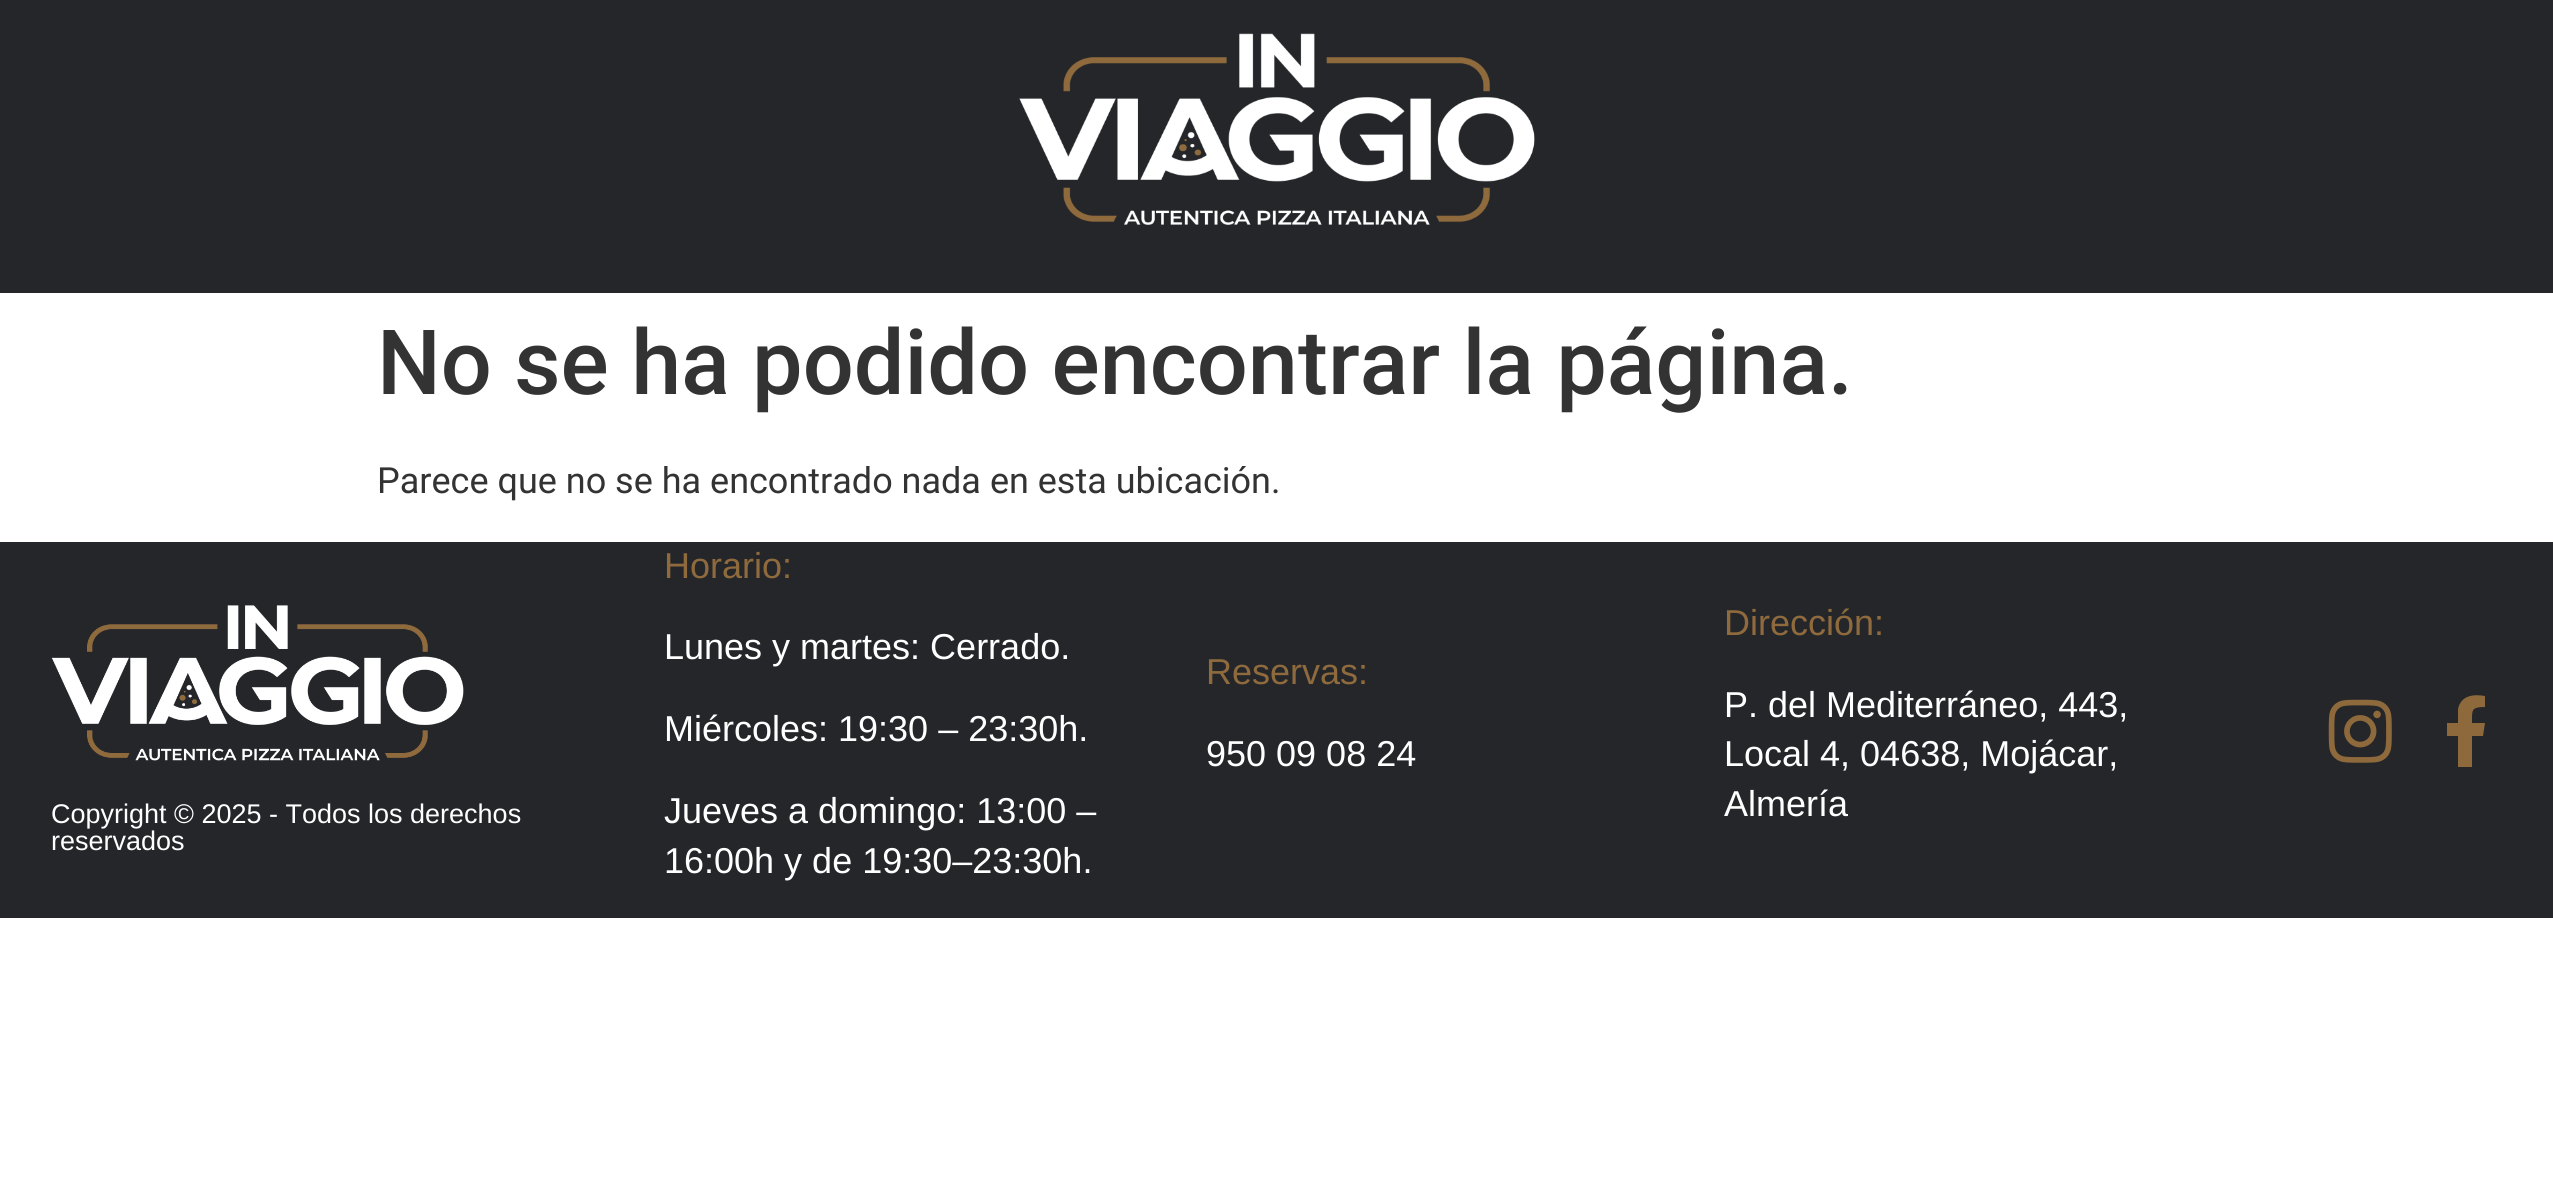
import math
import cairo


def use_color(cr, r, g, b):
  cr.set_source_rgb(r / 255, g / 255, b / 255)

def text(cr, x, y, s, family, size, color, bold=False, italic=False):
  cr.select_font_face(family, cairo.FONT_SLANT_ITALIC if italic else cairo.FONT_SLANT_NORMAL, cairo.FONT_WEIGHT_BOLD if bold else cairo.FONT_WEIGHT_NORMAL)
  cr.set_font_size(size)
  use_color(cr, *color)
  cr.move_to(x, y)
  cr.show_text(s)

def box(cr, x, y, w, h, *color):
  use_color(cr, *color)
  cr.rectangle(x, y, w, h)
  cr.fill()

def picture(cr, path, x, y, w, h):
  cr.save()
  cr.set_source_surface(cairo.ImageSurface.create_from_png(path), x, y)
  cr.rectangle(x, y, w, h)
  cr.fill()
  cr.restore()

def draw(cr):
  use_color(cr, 255, 255, 255)
  cr.paint()
  box(cr, 0, 0, 2553, 293, 36, 38, 42)
  picture(cr, "img_01.png", 1019, 33, 516, 192)
  box(cr, 0, 542, 2553, 376, 36, 38, 42)
  picture(cr, "img_02.png", 2328, 699, 64, 64)
  use_color(cr, 142, 105, 60)
  cr.new_path()
  cr.move_to(2483, 736)
  cr.line_to(2485, 723)
  cr.line_to(2472, 723)
  cr.curve_to(2472, 710, 2471, 707, 2485, 707)
  cr.line_to(2485, 696)
  cr.curve_to(2474, 694, 2461, 695, 2458, 709)
  cr.line_to(2458, 723)
  cr.line_to(2447, 723)
  cr.line_to(2447, 736)
  cr.line_to(2458, 736)
  cr.line_to(2458, 767)
  cr.line_to(2472, 767)
  cr.line_to(2472, 736)
  cr.close_path()
  cr.fill()
  picture(cr, "img_03.png", 51, 605, 413, 156)
  text(cr, 377, 394, "No se ha podido encontrar la página.", "Roboto Medium", 90, (51, 51, 51))
  text(cr, 377, 493, "Parece que no se ha encontrado nada en esta ubicación.", "Roboto", 36, (51, 51, 51))
  text(cr, 664, 578, "Horario:", "Liberation Sans", 36, (142, 106, 61))
  text(cr, 664, 659, "Lunes y martes: Cerrado.", "Liberation Sans", 36, (255, 255, 255))
  text(cr, 664, 741, "Miércoles: 19:30 – 23:30h.", "Liberation Sans", 36, (255, 255, 255))
  text(cr, 664, 823, "Jueves a domingo: 13:00 –", "Liberation Sans", 36, (255, 255, 255))
  text(cr, 664, 873, "16:00h y de 19:30–23:30h.", "Liberation Sans", 36, (255, 255, 255))
  text(cr, 1206, 684, "Reservas:", "Liberation Sans", 36, (142, 106, 61))
  text(cr, 1206, 766, "950 09 08 24", "Liberation Sans", 36, (255, 255, 255))
  text(cr, 1724, 635, "Dirección:", "Liberation Sans", 36, (142, 106, 61))
  text(cr, 1724, 717, "P. del Mediterráneo, 443,", "Liberation Sans", 36, (255, 255, 255))
  text(cr, 1724, 766, "Local 4, 04638, Mojácar,", "Liberation Sans", 36, (255, 255, 255))
  text(cr, 1724, 816, "Almería", "Liberation Sans", 36, (255, 255, 255))
  text(cr, 51, 823, "Copyright © 2025 - Todos los derechos", "Liberation Sans", 27, (255, 255, 255))
  text(cr, 51, 850, "reservados", "Liberation Sans", 27, (255, 255, 255))


surface = cairo.ImageSurface(cairo.FORMAT_RGB24, 2553, 1202)
cr = cairo.Context(surface)
options = cairo.FontOptions()
options.set_hint_metrics(cairo.HINT_METRICS_OFF)
options.set_hint_style(cairo.HINT_STYLE_NONE)
cr.set_font_options(options)
cr.set_miter_limit(4)
draw(cr)
surface.write_to_png("out.png")
